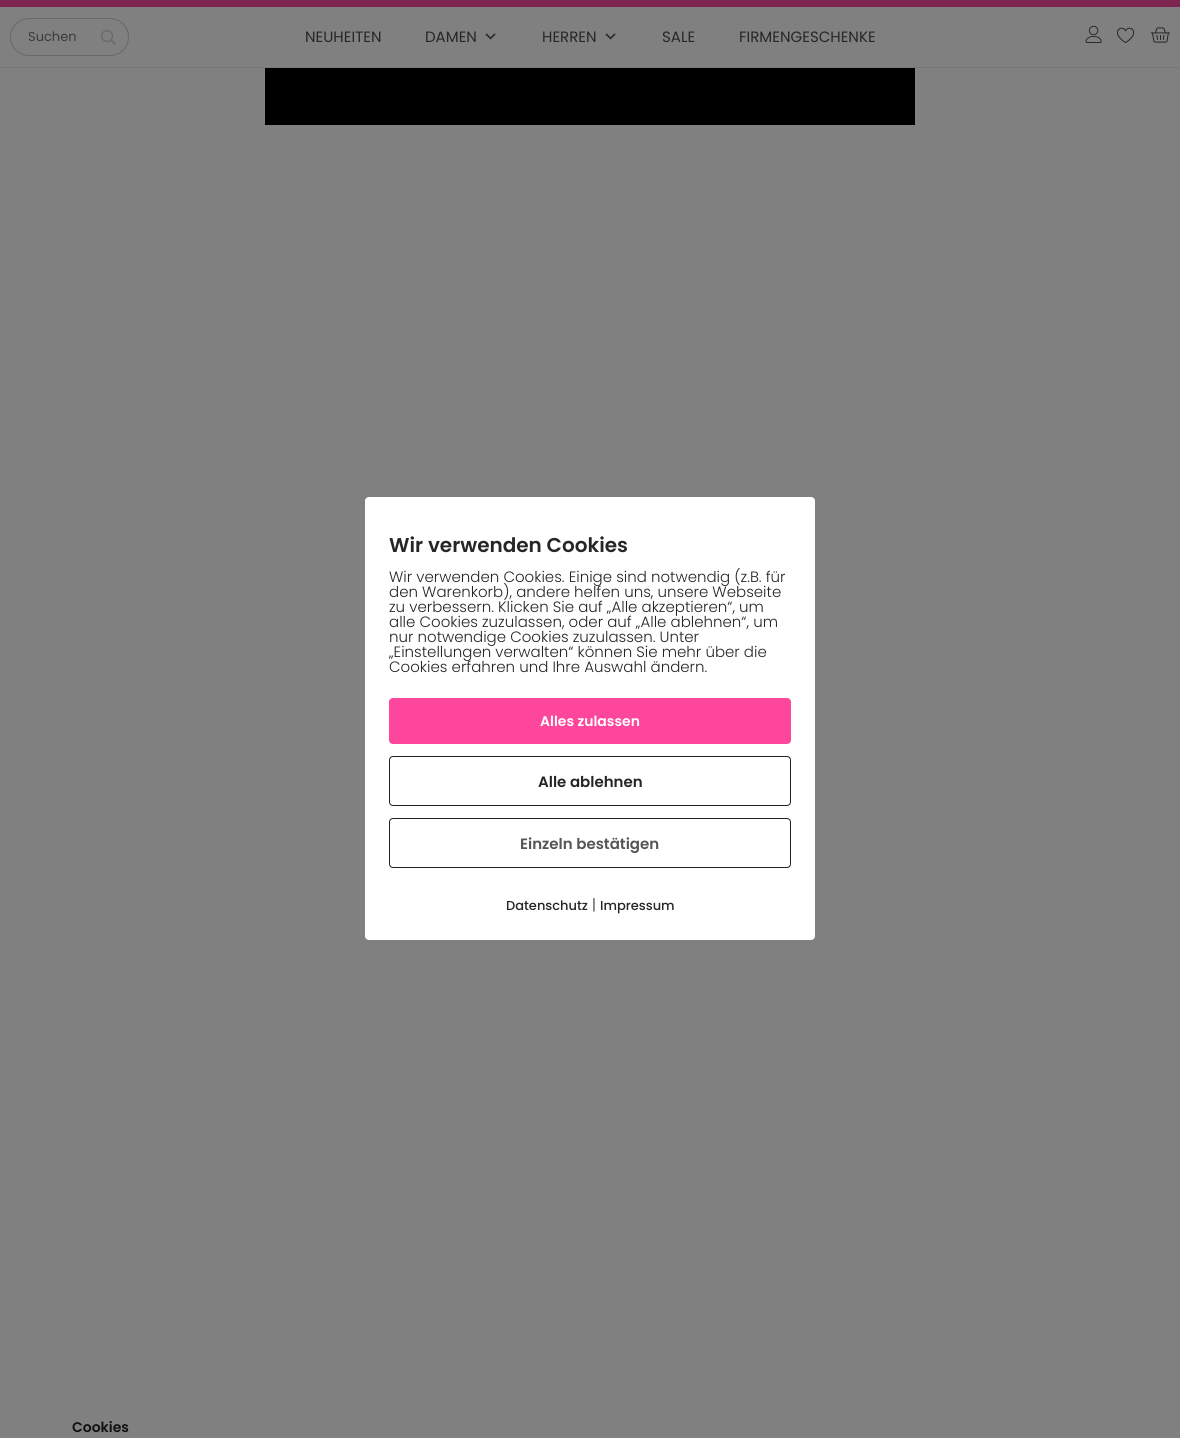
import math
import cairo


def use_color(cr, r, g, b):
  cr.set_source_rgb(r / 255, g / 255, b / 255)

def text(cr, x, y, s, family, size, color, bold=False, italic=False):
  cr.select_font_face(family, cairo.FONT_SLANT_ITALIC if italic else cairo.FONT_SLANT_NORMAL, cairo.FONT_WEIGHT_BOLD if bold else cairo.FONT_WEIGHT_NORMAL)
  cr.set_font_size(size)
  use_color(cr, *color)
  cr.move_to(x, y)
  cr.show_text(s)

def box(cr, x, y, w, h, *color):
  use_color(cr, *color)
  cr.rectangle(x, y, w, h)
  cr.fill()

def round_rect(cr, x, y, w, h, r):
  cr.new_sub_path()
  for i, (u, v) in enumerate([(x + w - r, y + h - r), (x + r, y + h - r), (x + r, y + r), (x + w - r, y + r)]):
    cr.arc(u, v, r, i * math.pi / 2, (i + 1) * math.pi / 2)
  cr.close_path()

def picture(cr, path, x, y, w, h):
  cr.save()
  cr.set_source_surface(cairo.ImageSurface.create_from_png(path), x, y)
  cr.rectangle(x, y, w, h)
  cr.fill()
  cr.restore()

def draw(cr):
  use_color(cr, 128, 128, 128)
  cr.paint()
  box(cr, 0, 0, 1180, 7, 127, 35, 79)
  box(cr, 0, 67, 1180, 1, 121, 120, 120)
  picture(cr, "img_01.png", 101, 30, 15, 15)
  round_rect(cr, 10.5, 18.5, 118, 37, 18.5)
  use_color(cr, 104, 104, 104)
  cr.set_line_width(1)
  cr.stroke()
  picture(cr, "img_02.png", 485, 33, 11, 7)
  picture(cr, "img_02.png", 605, 33, 11, 7)
  picture(cr, "img_03.png", 1085, 25, 17, 18)
  picture(cr, "img_04.png", 1117, 27, 18, 16)
  picture(cr, "img_05.png", 1150, 27, 20, 16)
  picture(cr, "img_06.png", 265, 68, 650, 57)
  use_color(cr, 255, 255, 255)
  round_rect(cr, 365, 497, 450, 443, 4)
  cr.fill()
  use_color(cr, 254, 70, 157)
  round_rect(cr, 389, 698, 402, 46, 4)
  cr.fill()
  round_rect(cr, 389.5, 756.5, 401, 49, 3.5)
  use_color(cr, 33, 33, 33)
  cr.stroke()
  round_rect(cr, 389.5, 818.5, 401, 49, 3.5)
  cr.stroke()
  text(cr, 28, 41, "Suchen", "Poppins", 13, (59, 59, 59))
  text(cr, 305, 42, "NEUHEITEN", "Poppins", 15, (38, 38, 38))
  text(cr, 425, 42, "DAMEN", "Poppins", 15, (38, 38, 38))
  text(cr, 542, 42, "HERREN", "Poppins", 15, (38, 38, 38))
  text(cr, 662, 42, "SALE", "Poppins", 15, (38, 38, 38))
  text(cr, 739, 42, "FIRMENGESCHENKE", "Poppins", 15, (38, 38, 38))
  text(cr, 389, 552, "Wir verwenden Cookies", "Poppins SemiBold", 20, (38, 38, 38))
  text(cr, 389, 582, "Wir verwenden Cookies. Einige sind notwendig (z.B. für", "Poppins Light", 15, (38, 38, 38))
  text(cr, 389, 597, "den Warenkorb), andere helfen uns, unsere Webseite", "Poppins Light", 15, (38, 38, 38))
  text(cr, 389, 612, "zu verbessern. Klicken Sie auf „Alle akzeptieren“, um", "Poppins Light", 15, (38, 38, 38))
  text(cr, 389, 627, "alle Cookies zuzulassen, oder auf „Alle ablehnen“, um", "Poppins Light", 15, (38, 38, 38))
  text(cr, 389, 642, "nur notwendige Cookies zuzulassen. Unter", "Poppins Light", 15, (38, 38, 38))
  text(cr, 389, 657, "„Einstellungen verwalten“ können Sie mehr über die", "Poppins Light", 15, (38, 38, 38))
  text(cr, 389, 672, "Cookies erfahren und Ihre Auswahl ändern.", "Poppins Light", 15, (38, 38, 38))
  text(cr, 540, 726, "Alles zulassen", "Poppins SemiBold", 14, (255, 255, 255))
  text(cr, 538, 787, "Alle ablehnen", "Poppins SemiBold", 15, (38, 38, 38))
  text(cr, 520, 849, "Einzeln bestätigen", "Poppins SemiBold", 15, (85, 85, 85))
  text(cr, 506, 910, "Datenschutz", "Poppins Medium", 13, (38, 38, 38))
  text(cr, 592, 910, "|", "Poppins Light", 15, (38, 38, 38))
  text(cr, 600, 910, "Impressum", "Poppins Medium", 13, (38, 38, 38))
  text(cr, 72, 1432, "Cookies", "Poppins SemiBold", 14, (17, 17, 17))


surface = cairo.ImageSurface(cairo.FORMAT_RGB24, 1180, 1438)
cr = cairo.Context(surface)
options = cairo.FontOptions()
options.set_hint_metrics(cairo.HINT_METRICS_OFF)
options.set_hint_style(cairo.HINT_STYLE_NONE)
cr.set_font_options(options)
cr.set_miter_limit(4)
draw(cr)
surface.write_to_png("out.png")
